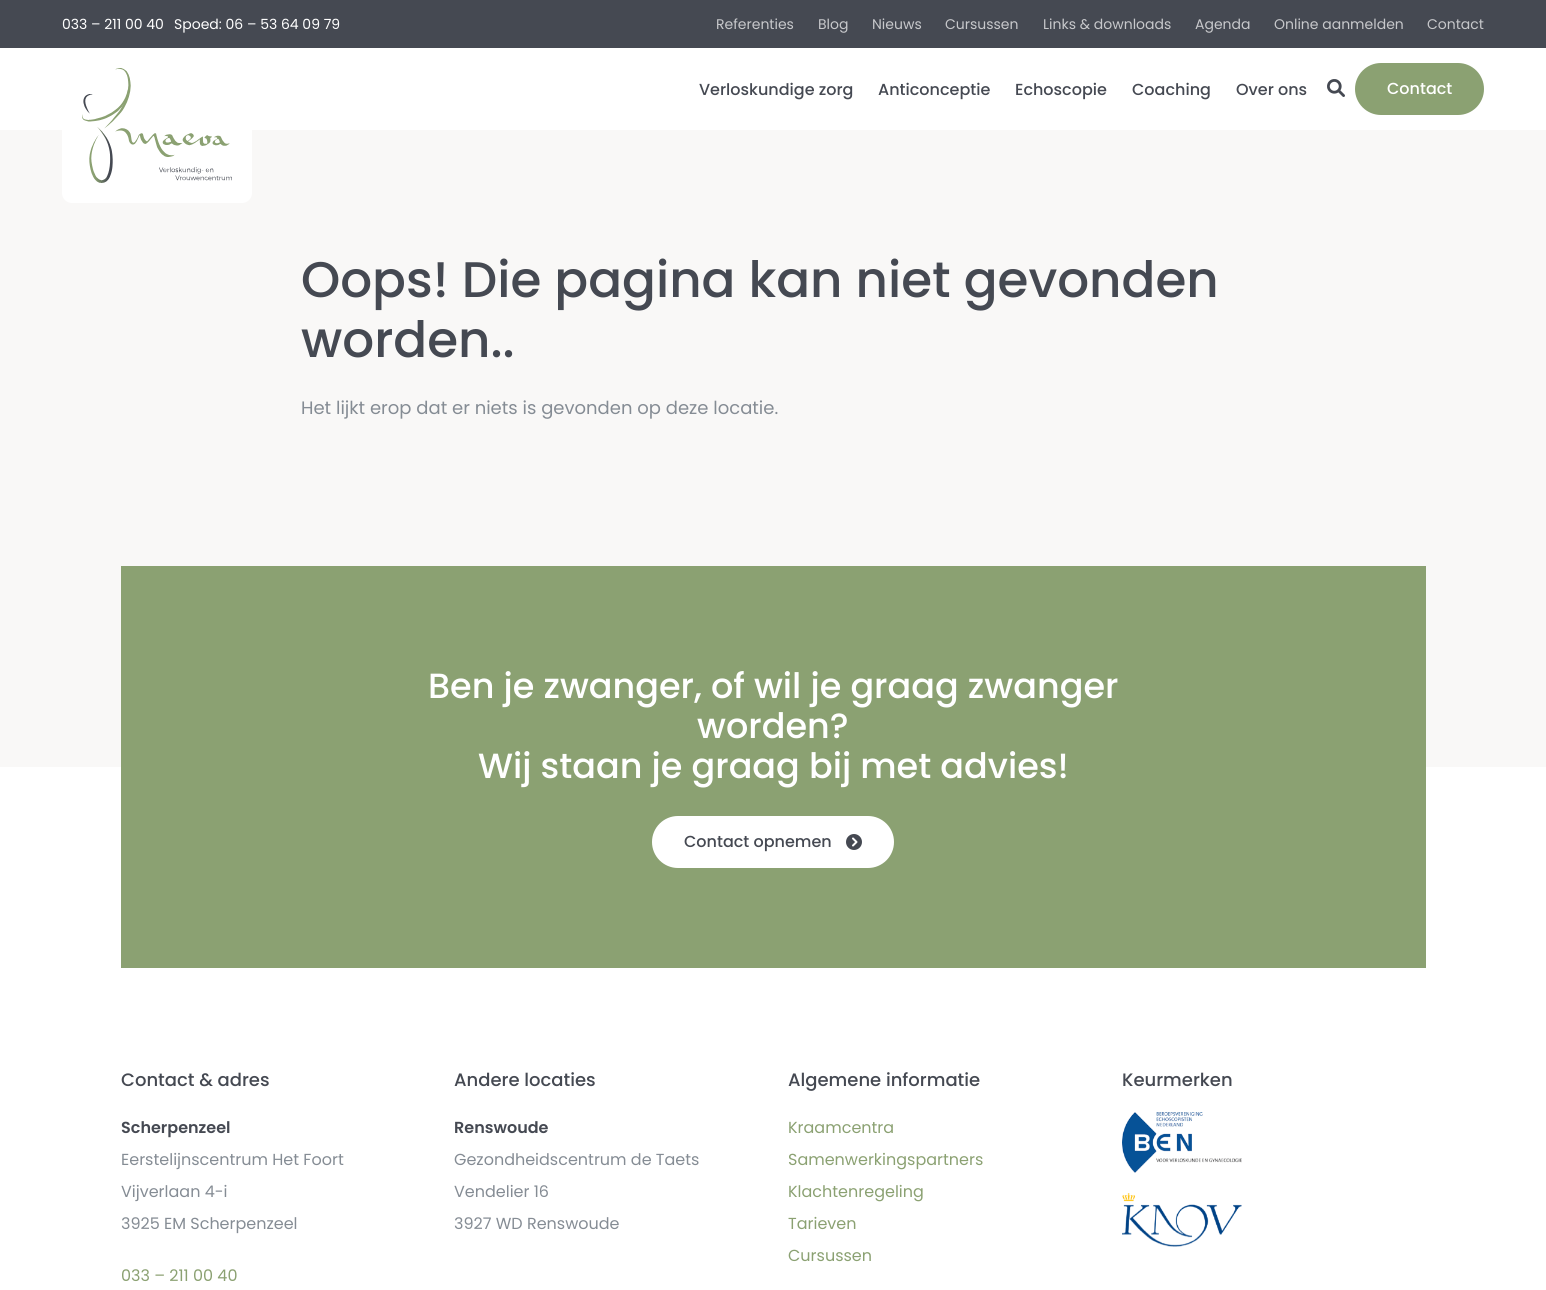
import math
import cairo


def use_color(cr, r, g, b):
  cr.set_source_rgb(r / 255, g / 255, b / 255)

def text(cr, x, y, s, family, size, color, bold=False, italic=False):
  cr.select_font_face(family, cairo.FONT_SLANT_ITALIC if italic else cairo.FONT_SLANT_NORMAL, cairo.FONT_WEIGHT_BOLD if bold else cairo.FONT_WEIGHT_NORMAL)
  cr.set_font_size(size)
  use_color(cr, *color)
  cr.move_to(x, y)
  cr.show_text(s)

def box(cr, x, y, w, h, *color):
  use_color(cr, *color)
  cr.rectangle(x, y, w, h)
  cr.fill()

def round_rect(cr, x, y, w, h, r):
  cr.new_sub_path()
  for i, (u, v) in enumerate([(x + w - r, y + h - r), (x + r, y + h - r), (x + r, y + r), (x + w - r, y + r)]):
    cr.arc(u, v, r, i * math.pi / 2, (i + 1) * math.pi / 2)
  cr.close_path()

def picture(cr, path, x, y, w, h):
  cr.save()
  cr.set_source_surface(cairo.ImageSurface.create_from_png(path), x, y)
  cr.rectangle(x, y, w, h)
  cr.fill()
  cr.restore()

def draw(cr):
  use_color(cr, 249, 248, 247)
  cr.paint()
  box(cr, 0, 0, 1546, 48, 69, 73, 82)
  box(cr, 0, 48, 1546, 82, 255, 255, 255)
  cr.new_path()
  cr.move_to(62, 48)
  cr.line_to(252, 48)
  cr.line_to(252, 193)
  cr.curve_to(252, 198.5, 247.5, 203, 242, 203)
  cr.line_to(72, 203)
  cr.curve_to(66.5, 203, 62, 198.5, 62, 193)
  cr.close_path()
  cr.fill()
  picture(cr, "img_01.png", 82, 68, 150, 115)
  picture(cr, "img_02.png", 1327, 79, 18, 18)
  use_color(cr, 139, 161, 114)
  round_rect(cr, 1355, 63, 129, 52, 26)
  cr.fill()
  box(cr, 0, 767, 1546, 523, 255, 255, 255)
  box(cr, 121, 566, 1305, 402, 139, 161, 114)
  use_color(cr, 255, 255, 255)
  round_rect(cr, 652, 816, 242, 52, 26)
  cr.fill()
  picture(cr, "img_03.png", 846, 834, 16, 16)
  picture(cr, "img_04.png", 1122, 1112, 120, 61)
  picture(cr, "img_05.png", 1122, 1193, 120, 54)
  text(cr, 62, 29, "033 – 211 00 40", "Poppins", 14, (255, 255, 255))
  text(cr, 174, 29, "Spoed: 06 – 53 64 09 79", "Poppins", 14, (255, 255, 255))
  text(cr, 716, 29, "Referenties", "Poppins", 14, (199, 200, 203))
  text(cr, 818, 29, "Blog", "Poppins", 14, (199, 200, 203))
  text(cr, 872, 29, "Nieuws", "Poppins", 14, (199, 200, 203))
  text(cr, 945, 29, "Cursussen", "Poppins", 14, (199, 200, 203))
  text(cr, 1043, 29, "Links & downloads", "Poppins", 14, (199, 200, 203))
  text(cr, 1195, 29, "Agenda", "Poppins", 14, (199, 200, 203))
  text(cr, 1274, 29, "Online aanmelden", "Poppins", 14, (199, 200, 203))
  text(cr, 1427, 29, "Contact", "Poppins", 14, (199, 200, 203))
  text(cr, 699, 95, "Verloskundige zorg", "Poppins Medium", 16, (69, 73, 82))
  text(cr, 878, 95, "Anticonceptie", "Poppins Medium", 16, (69, 73, 82))
  text(cr, 1015, 95, "Echoscopie", "Poppins Medium", 16, (69, 73, 82))
  text(cr, 1132, 95, "Coaching", "Poppins Medium", 16, (69, 73, 82))
  text(cr, 1236, 95, "Over ons", "Poppins Medium", 16, (69, 73, 82))
  text(cr, 1387, 94, "Contact", "Poppins Medium", 16, (255, 255, 255))
  text(cr, 301, 297, "Oops! Die pagina kan niet gevonden", "Poppins Medium", 50, (69, 73, 82))
  text(cr, 301, 357, "worden..", "Poppins Medium", 50, (69, 73, 82))
  text(cr, 301, 414, "Het lijkt erop dat er niets is gevonden op deze locatie.", "Poppins", 18, (133, 140, 148))
  text(cr, 428, 698, "Ben je zwanger, of wil je graag zwanger", "Poppins Medium", 35, (255, 255, 255))
  text(cr, 697, 738, "worden?", "Poppins Medium", 35, (255, 255, 255))
  text(cr, 478, 778, "Wij staan je graag bij met advies!", "Poppins Medium", 35, (255, 255, 255))
  text(cr, 684, 847, "Contact opnemen", "Poppins Medium", 16, (69, 73, 82))
  text(cr, 121, 1086, "Contact & adres", "Poppins Medium", 18, (69, 73, 82))
  text(cr, 121, 1133, "Scherpenzeel", "Poppins SemiBold", 16, (69, 73, 82))
  text(cr, 121, 1165, "Eerstelijnscentrum Het Foort", "Poppins", 16, (133, 140, 148))
  text(cr, 121, 1197, "Vijverlaan 4-i", "Poppins", 16, (133, 140, 148))
  text(cr, 121, 1229, "3925 EM Scherpenzeel", "Poppins", 16, (133, 140, 148))
  text(cr, 121, 1281, "033 – 211 00 40", "Poppins", 16, (139, 161, 114))
  text(cr, 454, 1086, "Andere locaties", "Poppins Medium", 18, (69, 73, 82))
  text(cr, 454, 1133, "Renswoude", "Poppins SemiBold", 16, (69, 73, 82))
  text(cr, 454, 1165, "Gezondheidscentrum de Taets", "Poppins", 16, (133, 140, 148))
  text(cr, 454, 1197, "Vendelier 16", "Poppins", 16, (133, 140, 148))
  text(cr, 454, 1229, "3927 WD Renswoude", "Poppins", 16, (133, 140, 148))
  text(cr, 788, 1086, "Algemene informatie", "Poppins Medium", 18, (69, 73, 82))
  text(cr, 788, 1133, "Kraamcentra", "Poppins", 16, (139, 161, 114))
  text(cr, 788, 1165, "Samenwerkingspartners", "Poppins", 16, (139, 161, 114))
  text(cr, 788, 1197, "Klachtenregeling", "Poppins", 16, (139, 161, 114))
  text(cr, 788, 1229, "Tarieven", "Poppins", 16, (139, 161, 114))
  text(cr, 788, 1261, "Cursussen", "Poppins", 16, (139, 161, 114))
  text(cr, 1122, 1086, "Keurmerken", "Poppins Medium", 18, (69, 73, 82))


surface = cairo.ImageSurface(cairo.FORMAT_RGB24, 1546, 1290)
cr = cairo.Context(surface)
options = cairo.FontOptions()
options.set_hint_metrics(cairo.HINT_METRICS_OFF)
options.set_hint_style(cairo.HINT_STYLE_NONE)
cr.set_font_options(options)
cr.set_miter_limit(4)
draw(cr)
surface.write_to_png("out.png")
